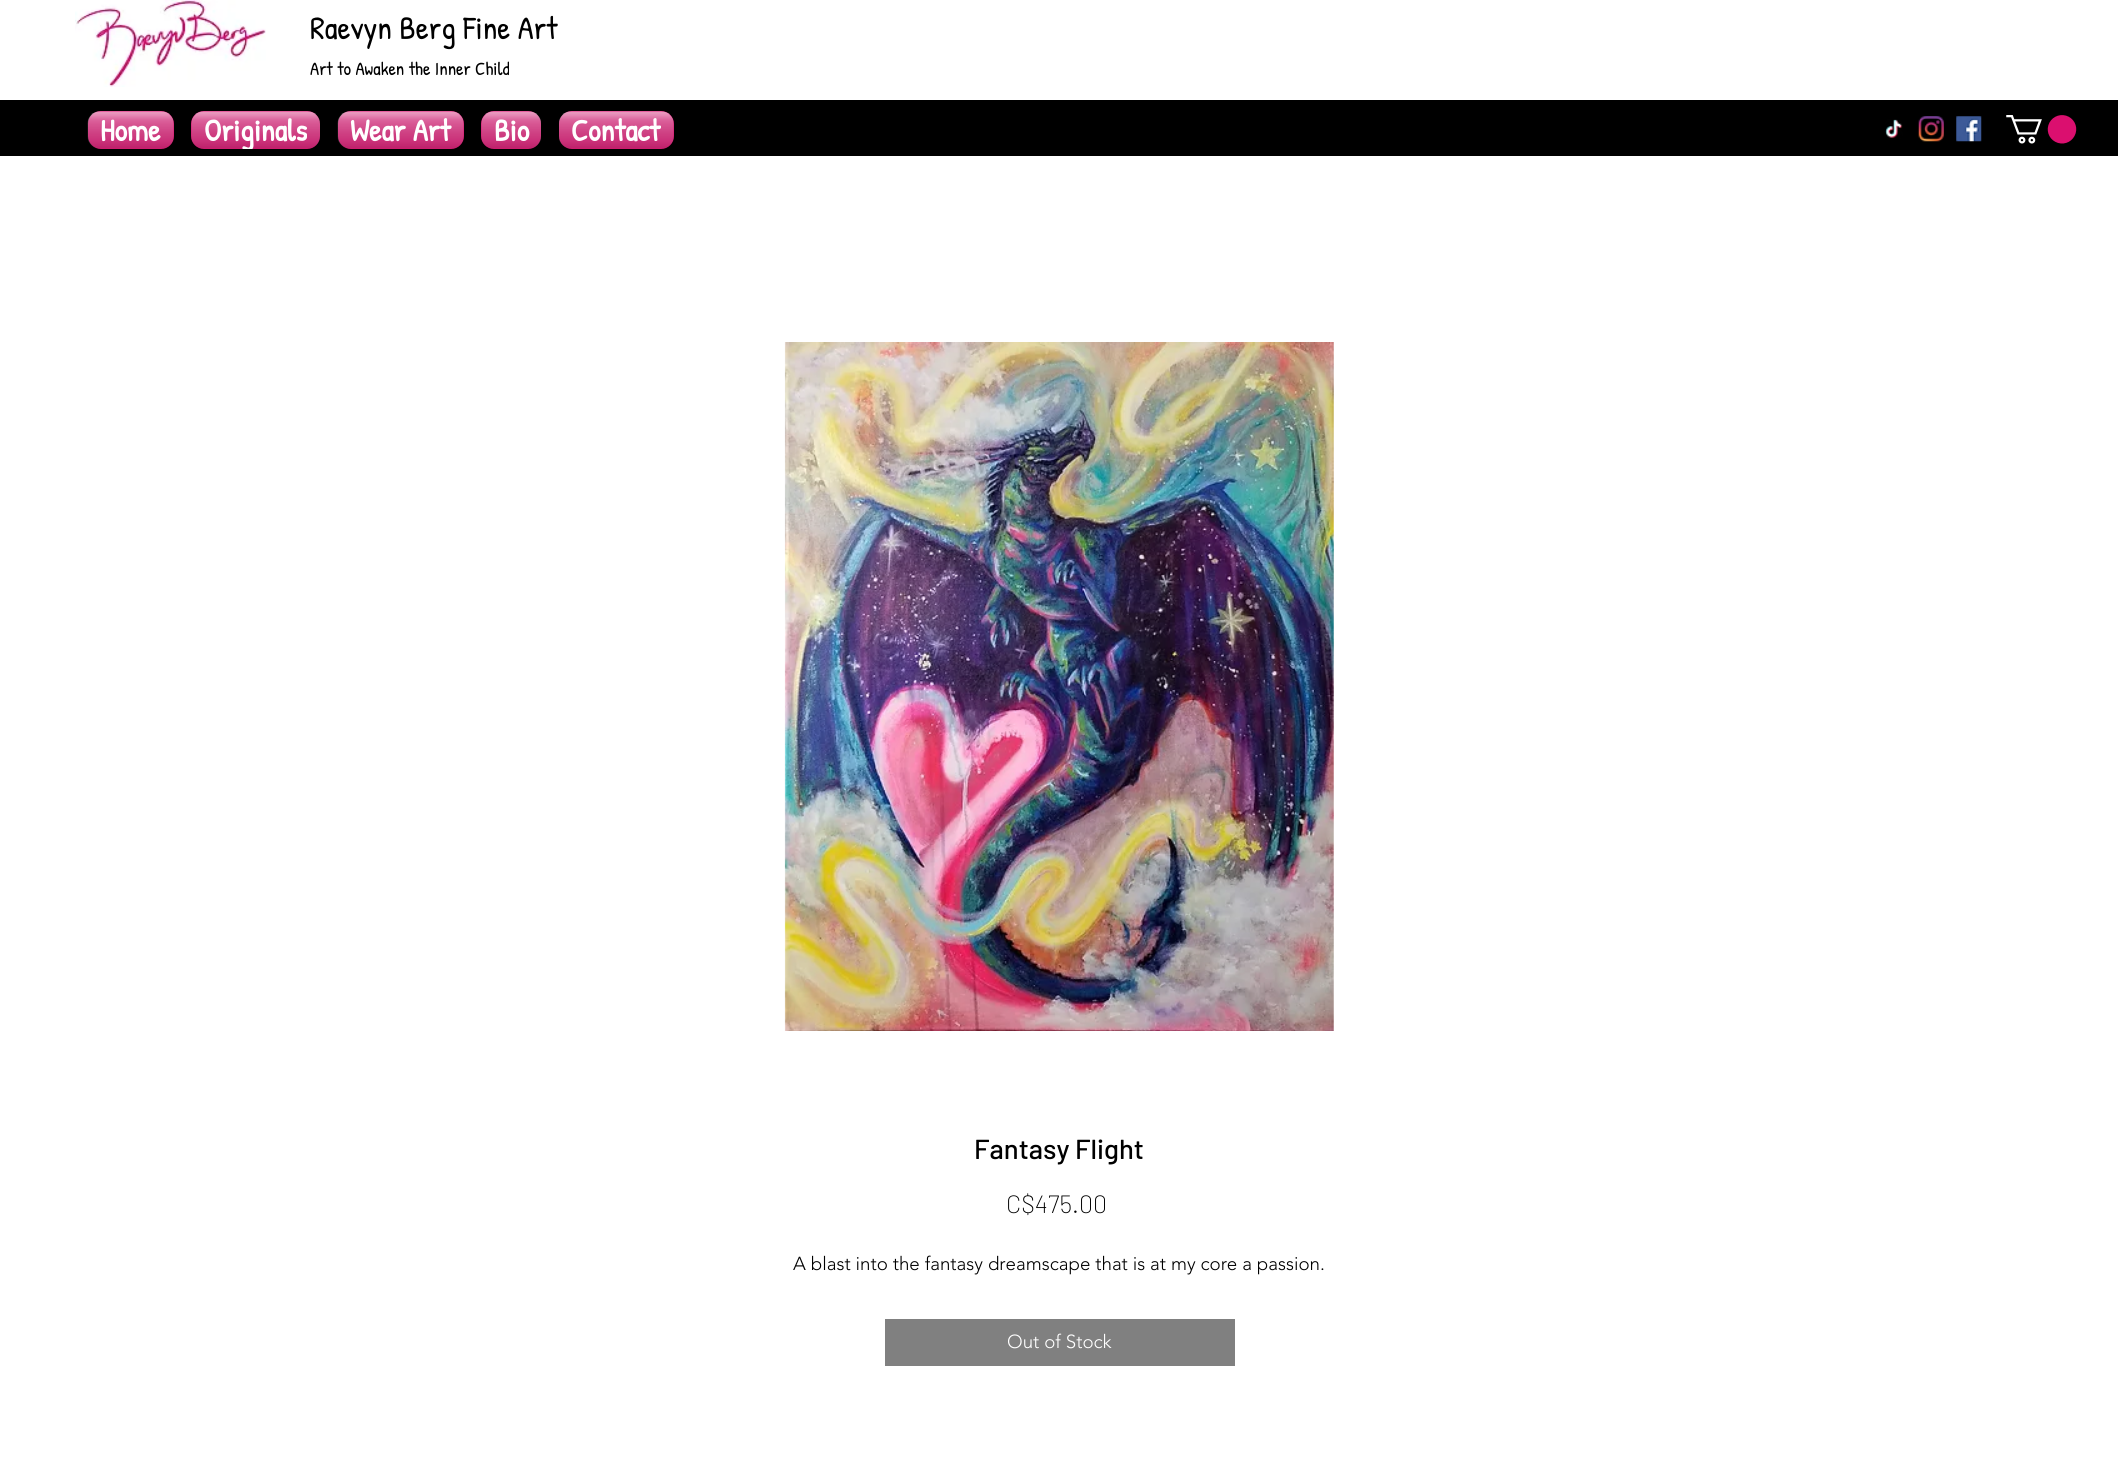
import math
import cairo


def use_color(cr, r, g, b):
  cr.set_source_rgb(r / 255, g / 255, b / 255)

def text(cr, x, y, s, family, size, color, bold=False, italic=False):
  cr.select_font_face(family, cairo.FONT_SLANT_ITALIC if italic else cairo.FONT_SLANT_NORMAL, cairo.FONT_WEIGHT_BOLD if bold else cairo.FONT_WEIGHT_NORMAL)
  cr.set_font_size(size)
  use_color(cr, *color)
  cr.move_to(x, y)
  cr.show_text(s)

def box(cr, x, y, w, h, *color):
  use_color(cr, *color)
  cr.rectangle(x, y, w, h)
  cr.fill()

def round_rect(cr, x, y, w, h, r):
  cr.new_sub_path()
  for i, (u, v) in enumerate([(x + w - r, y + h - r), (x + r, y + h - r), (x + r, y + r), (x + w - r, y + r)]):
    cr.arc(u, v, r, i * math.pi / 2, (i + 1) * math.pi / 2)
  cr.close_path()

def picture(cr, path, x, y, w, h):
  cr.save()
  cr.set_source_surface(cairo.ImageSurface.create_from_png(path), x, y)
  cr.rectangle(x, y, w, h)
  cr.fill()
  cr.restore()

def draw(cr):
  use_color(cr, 255, 255, 255)
  cr.paint()
  picture(cr, "img_01.png", 75, 0, 191, 87)
  box(cr, 0, 100, 2118, 56, 0, 0, 0)
  use_color(cr, 219, 15, 111)
  round_rect(cr, 88, 111, 86, 38, 13)
  cr.fill()
  picture(cr, "img_02.png", 87, 111, 87, 38)
  picture(cr, "img_03.png", 88, 112, 86, 37)
  round_rect(cr, 191, 111, 129, 38, 13)
  cr.fill()
  picture(cr, "img_04.png", 191, 111, 129, 38)
  picture(cr, "img_05.png", 191, 112, 129, 37)
  round_rect(cr, 338, 111, 126, 38, 13)
  cr.fill()
  picture(cr, "img_06.png", 337, 111, 127, 38)
  picture(cr, "img_07.png", 338, 112, 126, 37)
  round_rect(cr, 481, 111, 60, 38, 13)
  cr.fill()
  picture(cr, "img_08.png", 481, 111, 60, 38)
  picture(cr, "img_09.png", 481, 112, 60, 37)
  round_rect(cr, 559, 111, 115, 38, 13)
  cr.fill()
  picture(cr, "img_10.png", 559, 111, 115, 38)
  picture(cr, "img_11.png", 559, 112, 115, 37)
  picture(cr, "img_12.png", 1885, 119, 18, 20)
  picture(cr, "img_13.png", 1918, 116, 26, 26)
  picture(cr, "img_14.png", 1956, 116, 26, 26)
  picture(cr, "img_15.png", 2006, 115, 71, 29)
  picture(cr, "img_16.png", 784, 342, 550, 689)
  box(cr, 885, 1319, 350, 47, 128, 128, 128)
  text(cr, 310, 39, "Raevyn Berg Fine Art", "Patrick Hand", 32.5, (0, 0, 0))
  text(cr, 310, 75, "Art to Awaken the Inner Child", "Patrick Hand", 18.75, (0, 0, 0))
  text(cr, 100, 141, "Home", "Patrick Hand", 31, (255, 255, 255), bold=True)
  cr.save()
  cr.rectangle(183, 111, 146, 38)
  cr.clip()
  text(cr, 204, 141, "Originals", "Patrick Hand", 31, (255, 255, 255), bold=True)
  cr.restore()
  text(cr, 350, 141, "Wear Art", "Patrick Hand", 31, (255, 255, 255), bold=True)
  text(cr, 494, 141, "Bio", "Patrick Hand", 31, (255, 255, 255), bold=True)
  text(cr, 571, 141, "Contact", "Patrick Hand", 31, (255, 255, 255), bold=True)
  text(cr, 974, 1159, "Fantasy Flight", "Barlow Medium", 27.5, (0, 0, 0))
  text(cr, 1006, 1213, "C$475.00", "Barlow ExtraLight", 25, (0, 0, 0))
  text(cr, 793, 1270, "A blast into the fantasy dreamscape that is at my core a passion.", "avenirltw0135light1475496 Light", 18.75, (0, 0, 0))
  text(cr, 1007, 1348, "Out of Stock", "avenirltw0135light1475496 Light", 18.75, (255, 255, 255))


surface = cairo.ImageSurface(cairo.FORMAT_RGB24, 2118, 1472)
cr = cairo.Context(surface)
options = cairo.FontOptions()
options.set_hint_metrics(cairo.HINT_METRICS_OFF)
options.set_hint_style(cairo.HINT_STYLE_NONE)
cr.set_font_options(options)
cr.set_miter_limit(4)
draw(cr)
surface.write_to_png("out.png")
